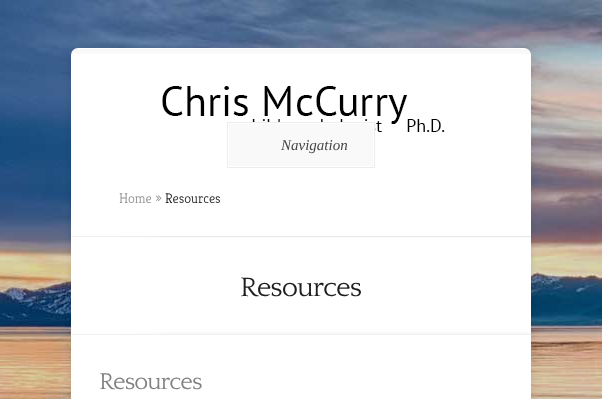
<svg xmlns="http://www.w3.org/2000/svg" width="602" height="399">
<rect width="100%" height="100%" fill="#fff"/>
<image x="0" y="0" width="602" height="399" href="media/1.png"/>
<rect x="71" y="48" width="460" height="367" rx="7" fill="#0000001a" filter="blur(3px)"/>
<rect x="71" y="48" width="460" height="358" rx="7" fill="#fff"/>
<image x="72" y="49" width="458" height="5" href="media/2.png"/>
<image x="162" y="86" width="283" height="50" href="media/3.png"/>
<rect x="228.5" y="123.5" width="145" height="43" fill="#f9f9f9" stroke="#fff"/>
<rect x="227.5" y="122.5" width="147" height="45" fill="none" stroke="#ececec"/>
<text x="281" y="150" style="font-family:Liberation Serif;font-size:15px;font-style:italic;fill:#464646">Navigation</text>
<text x="119" y="203" style="font-family:Kreon;font-size:14px;font-weight:300;fill:#929292">Home »</text>
<text x="165" y="203" style="font-family:Kreon;font-size:14px;font-weight:300;fill:#1d1d1d">Resources</text>
<image x="72" y="236" width="459" height="2" href="media/4.png"/>
<image x="72" y="332" width="459" height="3" href="media/5.png"/>
<text x="240" y="296" style="font-family:Quattrocento;font-size:28px;letter-spacing:-1px;fill:#1d1d1d">Resources</text>
<text x="99" y="389" style="font-family:Quattrocento;font-size:24px;letter-spacing:-1px;fill:#808080">Resources</text>
</svg>
